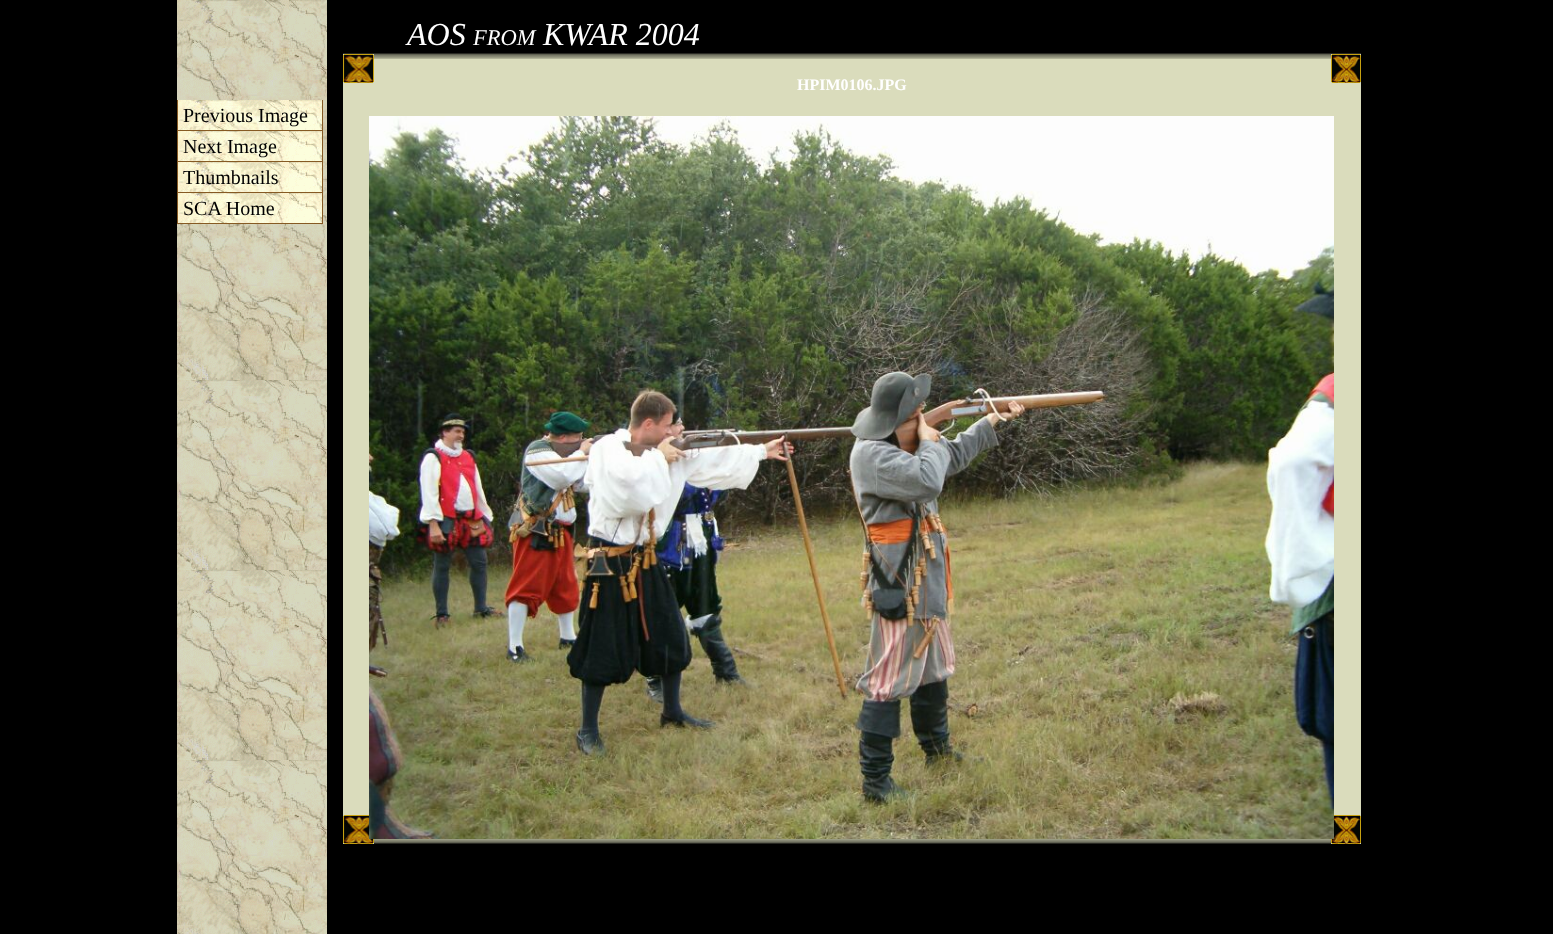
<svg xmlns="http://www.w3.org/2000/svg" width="1553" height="934">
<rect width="100%" height="100%" fill="#000"/>
<image x="177" y="0" width="150" height="934" href="media/1.png"/>
<text x="407" y="45" style="font-family:Liberation Serif;font-size:32px;font-style:italic;fill:#fff">AOS</text>
<text x="473" y="45" style="font-family:Liberation Serif;font-size:22.5px;font-style:italic;fill:#fff">FROM</text>
<text x="543" y="45" style="font-family:Liberation Serif;font-size:32px;font-style:italic;fill:#fff">KWAR 2004</text>
<rect x="343" y="59" width="1018" height="756" fill="#dadcbc"/>
<image x="343" y="53" width="1018" height="6" href="media/2.png"/>
<image x="374" y="839" width="957" height="5" href="media/3.png"/>
<image x="343" y="815" width="31" height="29" href="media/4.png"/>
<image x="1331" y="815" width="30" height="29" href="media/5.png"/>
<image x="343" y="54" width="31" height="29" href="media/4.png"/>
<image x="1331" y="54" width="30" height="29" href="media/5.png"/>
<text x="797" y="90" style="font-family:Liberation Serif;font-size:16px;font-weight:bold;fill:#fff">HPIM0106.JPG</text>
<image x="369" y="116" width="965" height="723" href="media/6.png"/>
<image x="178" y="100" width="144" height="30" href="media/7.png"/>
<rect x="322" y="100" width="1" height="124" fill="#865a23"/>
<rect x="177" y="130" width="146" height="1" fill="#865a23"/>
<rect x="177" y="100" width="1" height="31" fill="#865a23"/>
<text x="183" y="122" style="font-family:Liberation Serif;font-size:20px;fill:#000">Previous Image</text>
<image x="178" y="131" width="144" height="30" href="media/7.png"/>
<rect x="177" y="161" width="146" height="1" fill="#865a23"/>
<rect x="177" y="131" width="1" height="31" fill="#865a23"/>
<text x="183" y="153" style="font-family:Liberation Serif;font-size:20px;fill:#000">Next Image</text>
<image x="178" y="162" width="144" height="30" href="media/7.png"/>
<rect x="177" y="192" width="146" height="1" fill="#865a23"/>
<rect x="177" y="162" width="1" height="31" fill="#865a23"/>
<text x="183" y="184" style="font-family:Liberation Serif;font-size:20px;fill:#000">Thumbnails</text>
<image x="178" y="193" width="144" height="30" href="media/7.png"/>
<rect x="177" y="223" width="146" height="1" fill="#865a23"/>
<rect x="177" y="193" width="1" height="31" fill="#865a23"/>
<text x="183" y="215" style="font-family:Liberation Serif;font-size:20px;fill:#000">SCA Home</text>
</svg>
